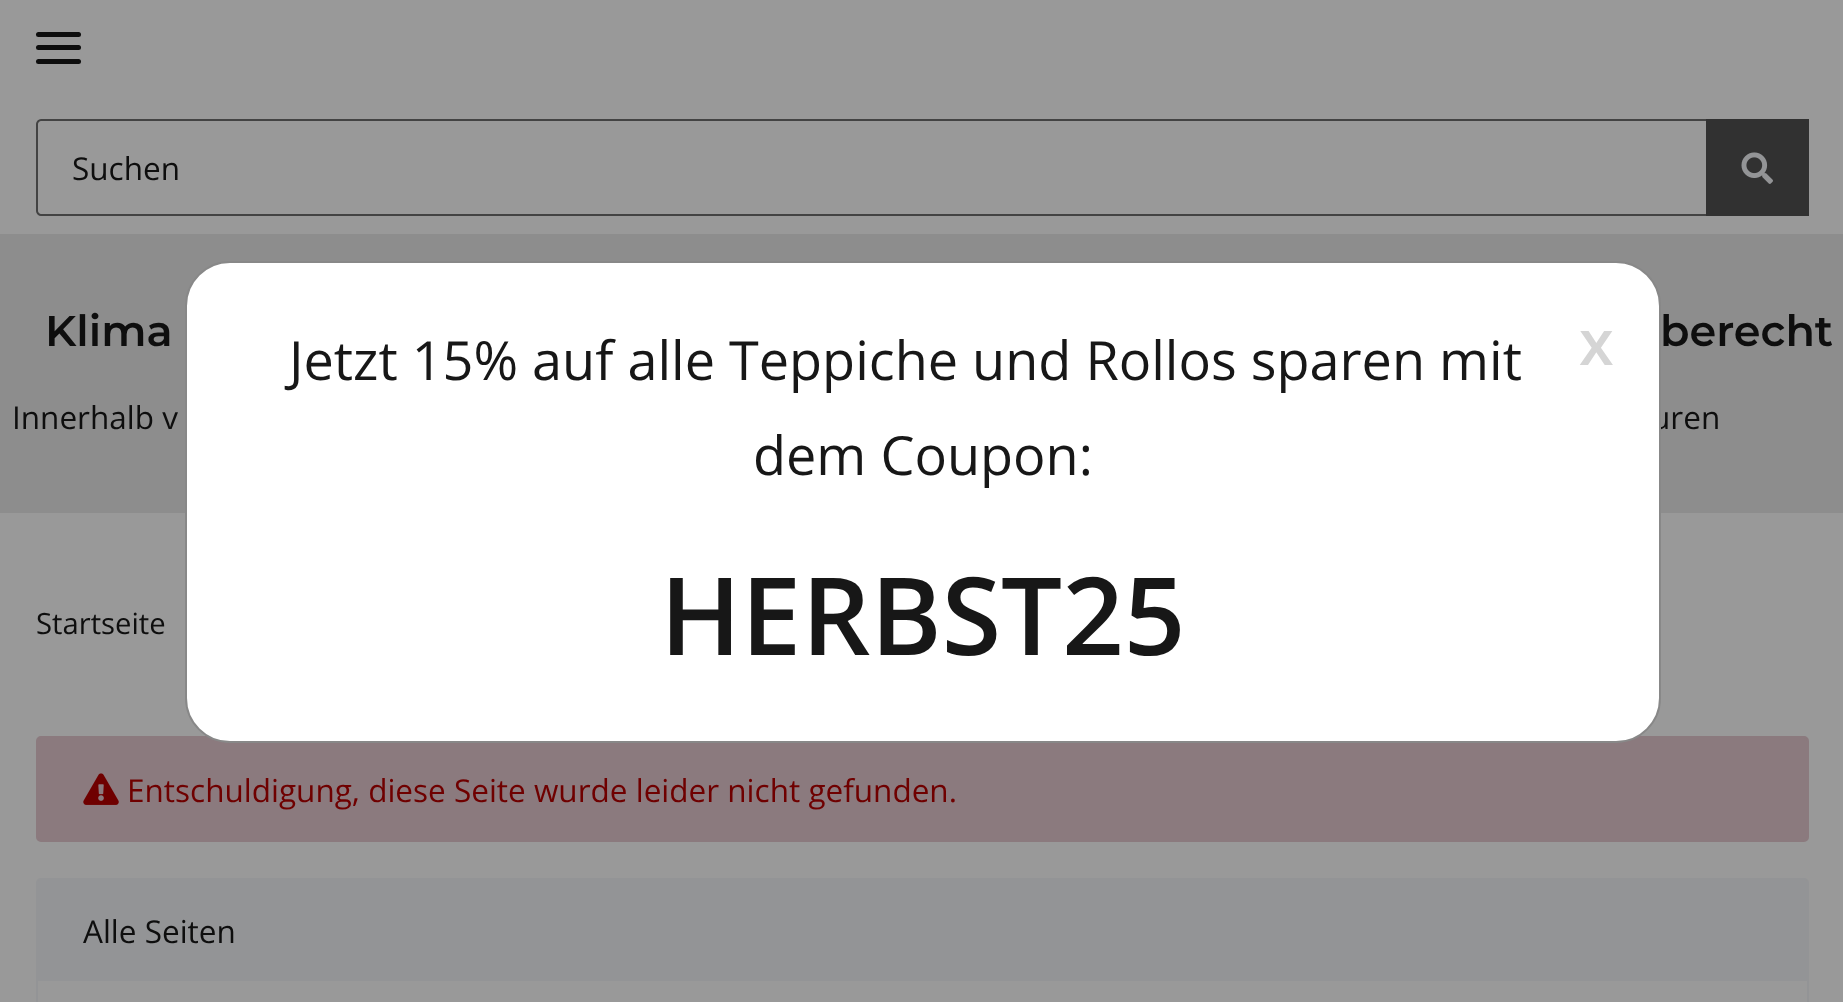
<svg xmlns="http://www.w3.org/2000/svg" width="1843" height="1002">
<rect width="100%" height="100%" fill="#999"/>
<rect x="36" y="45" width="45" height="5" rx="2.5" fill="#0e0e0e"/>
<rect x="36" y="32" width="45" height="5" rx="2.5" fill="#0e0e0e"/>
<rect x="36" y="59" width="45" height="5" rx="2.5" fill="#0e0e0e"/>
<path d="M41 120h1666v95h-1666c-2 0-4-2-4-4v-87c0-2 2-4 4-4z" fill="none" stroke="#434343" stroke-width="2"/>
<text x="72" y="180" style="font-family:Open Sans;font-size:31.5px;fill:#0e0e0e">Suchen</text>
<rect x="1706" y="119" width="103" height="97" fill="#313131"/>
<image x="1741" y="152" width="32" height="32" href="media/1.png"/>
<rect y="234" width="1843" height="279" fill="#8d8d8d"/>
<text x="45" y="346" style="font-family:Montserrat;font-size:43px;font-weight:600;fill:#0e0e0e">Klima</text>
<text x="12" y="429" style="font-family:Open Sans;font-size:31.5px;fill:#0e0e0e">Innerhalb v</text>
<text x="1660" y="346" style="font-family:Montserrat;font-size:43px;font-weight:600;fill:#0e0e0e">berecht</text>
<text x="1651" y="429" style="font-family:Open Sans;font-size:31.5px;fill:#0e0e0e">uren</text>
<rect x="37" y="737" width="1771" height="104" rx="4" fill="#8b7a7e" stroke="#8b7a7e" stroke-width="2"/>
<rect x="186" y="262" width="1474" height="480" rx="44" fill="#fff" stroke="#888" stroke-width="2"/>
<text x="289" y="380" style="font-family:Open Sans;font-size:54px;fill:#171717">Jetzt 15% auf alle Teppiche und Rollos sparen mit</text>
<text x="753" y="475" style="font-family:Open Sans;font-size:54px;fill:#171717">dem Coupon:</text>
<text x="660" y="655" style="font-family:Open Sans;font-size:108px;font-weight:600;fill:#171717">HERBST25</text>
<text x="1579" y="365" style="font-family:Open Sans;font-size:63px;font-weight:600;fill:#d5d5d5">x</text>
<text x="36" y="634" style="font-family:Open Sans;font-size:29.25px;fill:#0e0e0e">Startseite</text>
<image x="83" y="773" width="36" height="32" href="media/2.png"/>
<text x="127" y="802" style="font-family:Open Sans;font-size:31.5px;fill:#6f0000">Entschuldigung, diese Seite wurde leider nicht gefunden.</text>
<rect x="37" y="879" width="1771" height="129" rx="4" fill="none" stroke="#939496" stroke-width="2"/>
<path d="M40 880h1765c1 0 2 1 2 2v99h-1769v-99c0-1 1-2 2-2z" fill="#939496"/>
<text x="83" y="943" style="font-family:Open Sans;font-size:31.5px;fill:#0e0e0e">Alle Seiten</text>
</svg>
